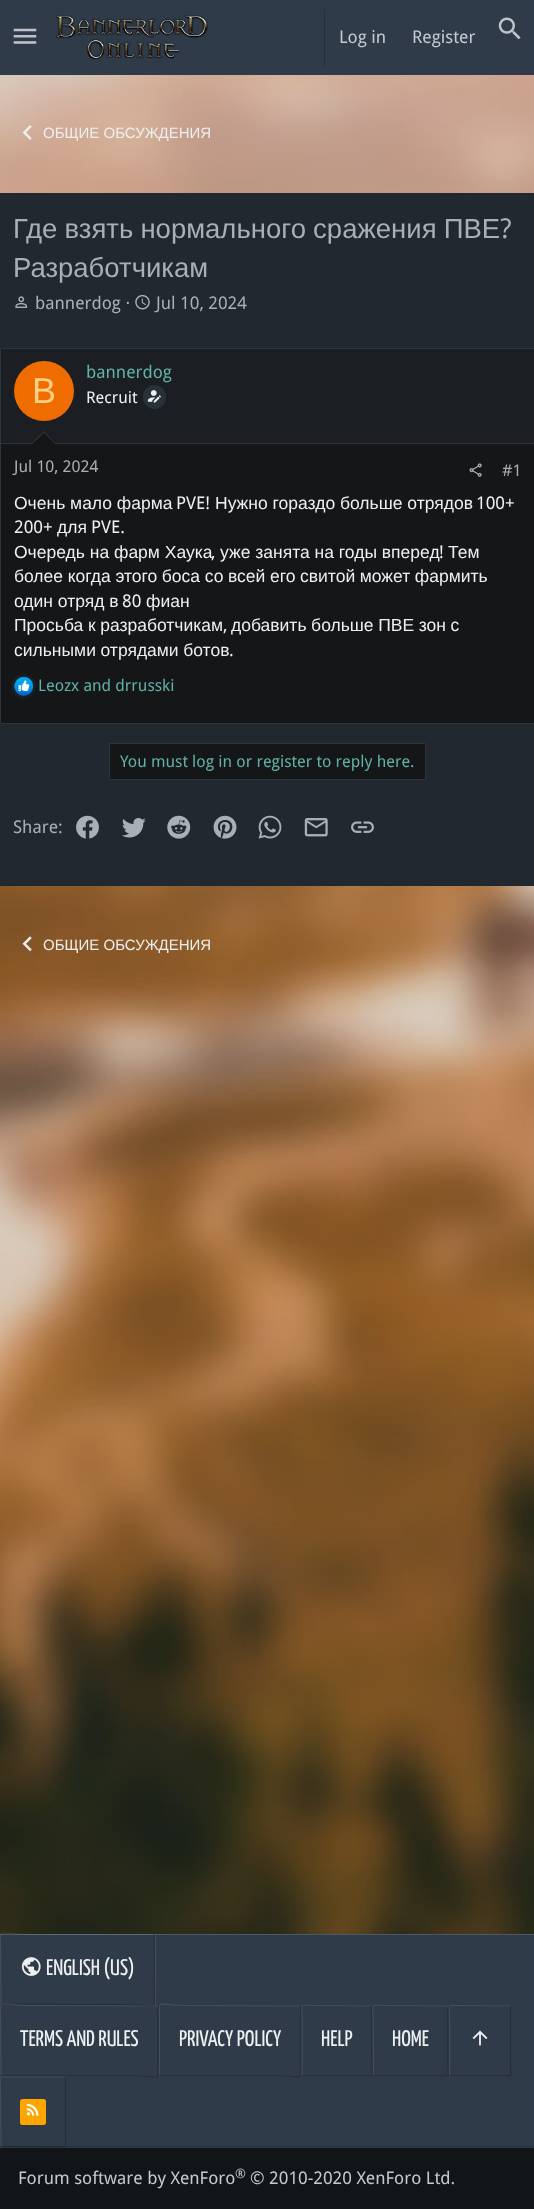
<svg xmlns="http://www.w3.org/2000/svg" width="534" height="2209">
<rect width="100%" height="100%" fill="#fff"/>
<image x="0" y="75" width="534" height="1859" href="media/1.png"/>
<rect width="534" height="75" fill="#2f3b49"/>
<image x="13" y="28" width="24" height="16" href="media/2.png"/>
<image x="55" y="15" width="153" height="45" href="media/3.png"/>
<rect x="324" y="9" width="1" height="59" fill="#262f3a"/>
<text x="339" y="43" style="font-family:Droid Sans;font-size:17.5px;fill:#c4c9cd">Log in</text>
<text x="412" y="43" style="font-family:Droid Sans;font-size:17.5px;fill:#c4c9cd">Register</text>
<image x="498" y="17" width="23" height="23" href="media/4.png"/>
<image x="22" y="125" width="10" height="15" href="media/5.png"/>
<text x="43" y="138" style="font-family:Liberation Sans;font-size:15px;fill:#edeff0">ОБЩИЕ ОБСУЖДЕНИЯ</text>
<rect y="193" width="534" height="693" fill="#22282f"/>
<text x="13" y="238" word-spacing="-0.5" style="font-family:Liberation Sans;font-size:27.5px;fill:#a8afb6">Где взять нормального сражения ПВЕ</text>
<text x="500" y="238" style="font-family:Droid Sans;font-size:27.5px;fill:#a8afb6">?</text>
<text x="13" y="277" style="font-family:Liberation Sans;font-size:27.5px;fill:#a8afb6">Разработчикам</text>
<image x="15" y="296" width="13" height="12" href="media/6.png"/>
<text x="35" y="309" style="font-family:Droid Sans;font-size:17.5px;fill:#a8afb6">bannerdog ·</text>
<image x="135" y="294" width="15" height="16" href="media/7.png"/>
<text x="156" y="309" style="font-family:Droid Sans;font-size:17.5px;fill:#a8afb6">Jul 10, 2024</text>
<rect x="0.5" y="348.5" width="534" height="375" rx="0.5" fill="#141618" stroke="#303539"/>
<rect x="1" y="349" width="533" height="94" fill="#1b1e23"/>
<rect x="1" y="443" width="533" height="1" fill="#303539"/>
<circle cx="44" cy="391" r="30" fill="#ef6c00"/>
<text x="32" y="403" style="font-family:Liberation Sans;font-size:36px;fill:#ffd180">B</text>
<text x="86" y="378" style="font-family:Droid Sans;font-size:17.5px;fill:#60b0a5">bannerdog</text>
<text x="86" y="403" style="font-family:Droid Sans;font-size:16.25px;fill:#edeff0">Recruit</text>
<rect x="143" y="385" width="23" height="24" rx="11.5" fill="#283038"/>
<image x="147" y="390" width="14" height="13" href="media/8.png"/>
<path d="M56 444h-25l13-13z" fill="#303539"/>
<path d="M55 444h-22.5l11.5-11.5z" fill="#141618"/>
<text x="14" y="472" style="font-family:Droid Sans;font-size:16.25px;fill:#a8afb6">Jul 10, 2024</text>
<image x="469" y="463" width="13" height="14" href="media/9.png"/>
<text x="502" y="476" style="font-family:Droid Sans;font-size:16.25px;fill:#a8afb6">#1</text>
<text x="14" y="509" style="font-family:Liberation Sans;font-size:17.5px;fill:#edeff0">Очень мало фарма</text>
<text x="176" y="509" style="font-family:Droid Sans;font-size:17.5px;fill:#edeff0">PVE!</text>
<text x="215" y="509" style="font-family:Liberation Sans;font-size:17.5px;fill:#edeff0">Нужно гораздо больше отрядов</text>
<text x="476" y="509" style="font-family:Droid Sans;font-size:17.5px;fill:#edeff0">100+</text>
<text x="14" y="533" style="font-family:Droid Sans;font-size:17.5px;fill:#edeff0">200+</text>
<text x="57" y="533" style="font-family:Liberation Sans;font-size:17.5px;fill:#edeff0">для</text>
<text x="91" y="533" style="font-family:Droid Sans;font-size:17.5px;fill:#edeff0">PVE.</text>
<text x="14" y="558" style="font-family:Liberation Sans;font-size:17.5px;fill:#edeff0">Очередь на фарм Хаука</text>
<text x="211" y="558" style="font-family:Droid Sans;font-size:17.5px;fill:#edeff0">,</text>
<text x="220" y="558" style="font-family:Liberation Sans;font-size:17.5px;fill:#edeff0">уже занята на годы вперед</text>
<text x="439" y="558" style="font-family:Droid Sans;font-size:17.5px;fill:#edeff0">!</text>
<text x="448" y="558" style="font-family:Liberation Sans;font-size:17.5px;fill:#edeff0">Тем</text>
<text x="14" y="582" word-spacing="-0.25" style="font-family:Liberation Sans;font-size:17.5px;fill:#edeff0">более когда этого боса со всей его свитой может фармить</text>
<text x="14" y="607" style="font-family:Liberation Sans;font-size:17.5px;fill:#edeff0">один отряд в</text>
<text x="122" y="607" style="font-family:Droid Sans;font-size:17.5px;fill:#edeff0">80</text>
<text x="146" y="607" style="font-family:Liberation Sans;font-size:17.5px;fill:#edeff0">фиан</text>
<text x="14" y="631" word-spacing="-0.25" style="font-family:Liberation Sans;font-size:17.5px;fill:#edeff0">Просьба к разработчикам</text>
<text x="223" y="631" style="font-family:Droid Sans;font-size:17.5px;fill:#edeff0">,</text>
<text x="231" y="631" word-spacing="-0.25" style="font-family:Liberation Sans;font-size:17.5px;fill:#edeff0">добавить больше ПВЕ зон с</text>
<text x="14" y="656" word-spacing="-0.25" style="font-family:Liberation Sans;font-size:17.5px;fill:#edeff0">сильными отрядами ботов</text>
<text x="229" y="656" style="font-family:Droid Sans;font-size:17.5px;fill:#edeff0">.</text>
<circle cx="23.5" cy="686.5" r="12.5" fill="#1b1e23"/>
<image x="14" y="677" width="19" height="19" href="media/10.png"/>
<text x="38" y="691" style="font-family:Droid Sans;font-size:16.25px;fill:#60b0a5">Leozx and drrusski</text>
<rect x="109.5" y="743.5" width="316" height="36" rx="0.5" fill="#141618" stroke="#303539"/>
<text x="120" y="767" style="font-family:Droid Sans;font-size:16.25px;fill:#60b0a5">You must log in or register to reply here.</text>
<text x="13" y="833" style="font-family:Droid Sans;font-size:17.5px;fill:#a8afb6">Share:</text>
<image x="76" y="815" width="23" height="24" href="media/11.png"/>
<image x="122" y="818" width="24" height="20" href="media/12.png"/>
<image x="167" y="815" width="24" height="24" href="media/13.png"/>
<image x="213" y="815" width="24" height="24" href="media/14.png"/>
<image x="258" y="815" width="24" height="24" href="media/15.png"/>
<image x="304" y="818" width="24" height="19" href="media/16.png"/>
<image x="351" y="821" width="23" height="12" href="media/17.png"/>
<image x="22" y="936" width="10" height="16" href="media/18.png"/>
<text x="43" y="950" style="font-family:Liberation Sans;font-size:15px;fill:#edeff0">ОБЩИЕ ОБСУЖДЕНИЯ</text>
<rect y="2148" width="534" height="61" fill="#111518"/>
<rect y="1935" width="534" height="213" fill="#2f3b49"/>
<rect y="2146" width="534" height="1" fill="#262f3a"/>
<rect y="1934" width="534" height="1" fill="#4e5864"/>
<rect x="155" y="1934" width="1" height="71" fill="#ffffff1a"/>
<path d="M154 1934.5l.5 58c0 20 2.5 12-26 12l-127.5-.5" fill="none" stroke="#262f3a" stroke-width="1.2"/>
<path d="M1 2004l-.5-57.5c0-20.5-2.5-12 26-12h127.5" fill="none" stroke="#ffffff1a" stroke-width="1.2"/>
<image x="21" y="1957" width="20" height="19" href="media/19.png"/>
<text x="46" y="1975" style="font-family:Yanone Kaffeesatz;font-size:22.5px;font-weight:200;fill:#edeff0">ENGLISH (US)</text>
<path d="M0 2005l-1 1v69c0 1 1 1 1 1v-1v-69c0 0 1-1 1-1z" fill="#262f3a"/>
<path d="M158 2006v57.5c0 20.5 3 12-26.5 12h-130.5" fill="none" stroke="#262f3a" stroke-width="1.2"/>
<path d="M1 2075.5l-.5-58c0-20.5-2.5-12 27-12l130.5 .5" fill="none" stroke="#ffffff1a" stroke-width="1.2"/>
<text x="20" y="2046" style="font-family:Yanone Kaffeesatz;font-size:22.5px;font-weight:200;fill:#edeff0">TERMS AND RULES</text>
<path d="M300.5 2006v57.5c0 19.5 3 12-24 12h-117" fill="none" stroke="#262f3a" stroke-width="1.2"/>
<path d="M159.5 2075.5v-58c0-19.5-3-12 24-12l117 .5" fill="none" stroke="#ffffff1a" stroke-width="1.2"/>
<text x="179" y="2046" style="font-family:Yanone Kaffeesatz;font-size:22.5px;font-weight:200;fill:#edeff0">PRIVACY POLICY</text>
<path d="M371.5 2006l.5 57.5c0 15.5 3.5 12-12 12h-58" fill="none" stroke="#262f3a" stroke-width="1.2"/>
<path d="M302 2075.5v-58c0-15.5-3.5-12 12-12l57.5 .5" fill="none" stroke="#ffffff1a" stroke-width="1.2"/>
<text x="321" y="2046" style="font-family:Yanone Kaffeesatz;font-size:22.5px;font-weight:200;fill:#edeff0">HELP</text>
<path d="M448 2006v57.5c0 16 3.5 12-13 12h-61.5" fill="none" stroke="#262f3a" stroke-width="1.2"/>
<path d="M373.5 2075.5l-.5-58c0-15.5-3.5-12 13-12l62 .5" fill="none" stroke="#ffffff1a" stroke-width="1.2"/>
<text x="392" y="2046" style="font-family:Yanone Kaffeesatz;font-size:22.5px;font-weight:200;fill:#edeff0">HOME</text>
<path d="M510.5 2006v57.5c0 15 3.5 12-10.5 12h-50.5" fill="none" stroke="#262f3a" stroke-width="1.2"/>
<path d="M449.5 2075.5v-58c0-14.5-3.5-12 10.5-12l50.5 .5" fill="none" stroke="#ffffff1a" stroke-width="1.2"/>
<image x="472" y="2030" width="16" height="16" href="media/20.png"/>
<path d="M65.5 2077v58c0 15 3.5 12-11 12l-53.5-.5" fill="none" stroke="#00000033" stroke-width="1.2"/>
<path d="M1 2146.5l-.5-57.5c0-15-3.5-12 11.5-12h53.5" fill="none" stroke="#434e5b" stroke-width="1.2"/>
<rect x="20" y="2099" width="26" height="26" rx="2.5" fill="#ffa500"/>
<image x="26" y="2103" width="13" height="13" href="media/21.png"/>
<text x="18" y="2184" style="font-family:Droid Sans;font-size:17.5px;fill:#c4c9cd">Forum software by XenForo</text>
<text x="235" y="2178" style="font-family:Droid Sans;font-size:13px;fill:#c4c9cd">®</text>
<text x="250" y="2184" style="font-family:Droid Sans;font-size:17.5px;fill:#c4c9cd">© 2010-2020 XenForo Ltd.</text>
</svg>
